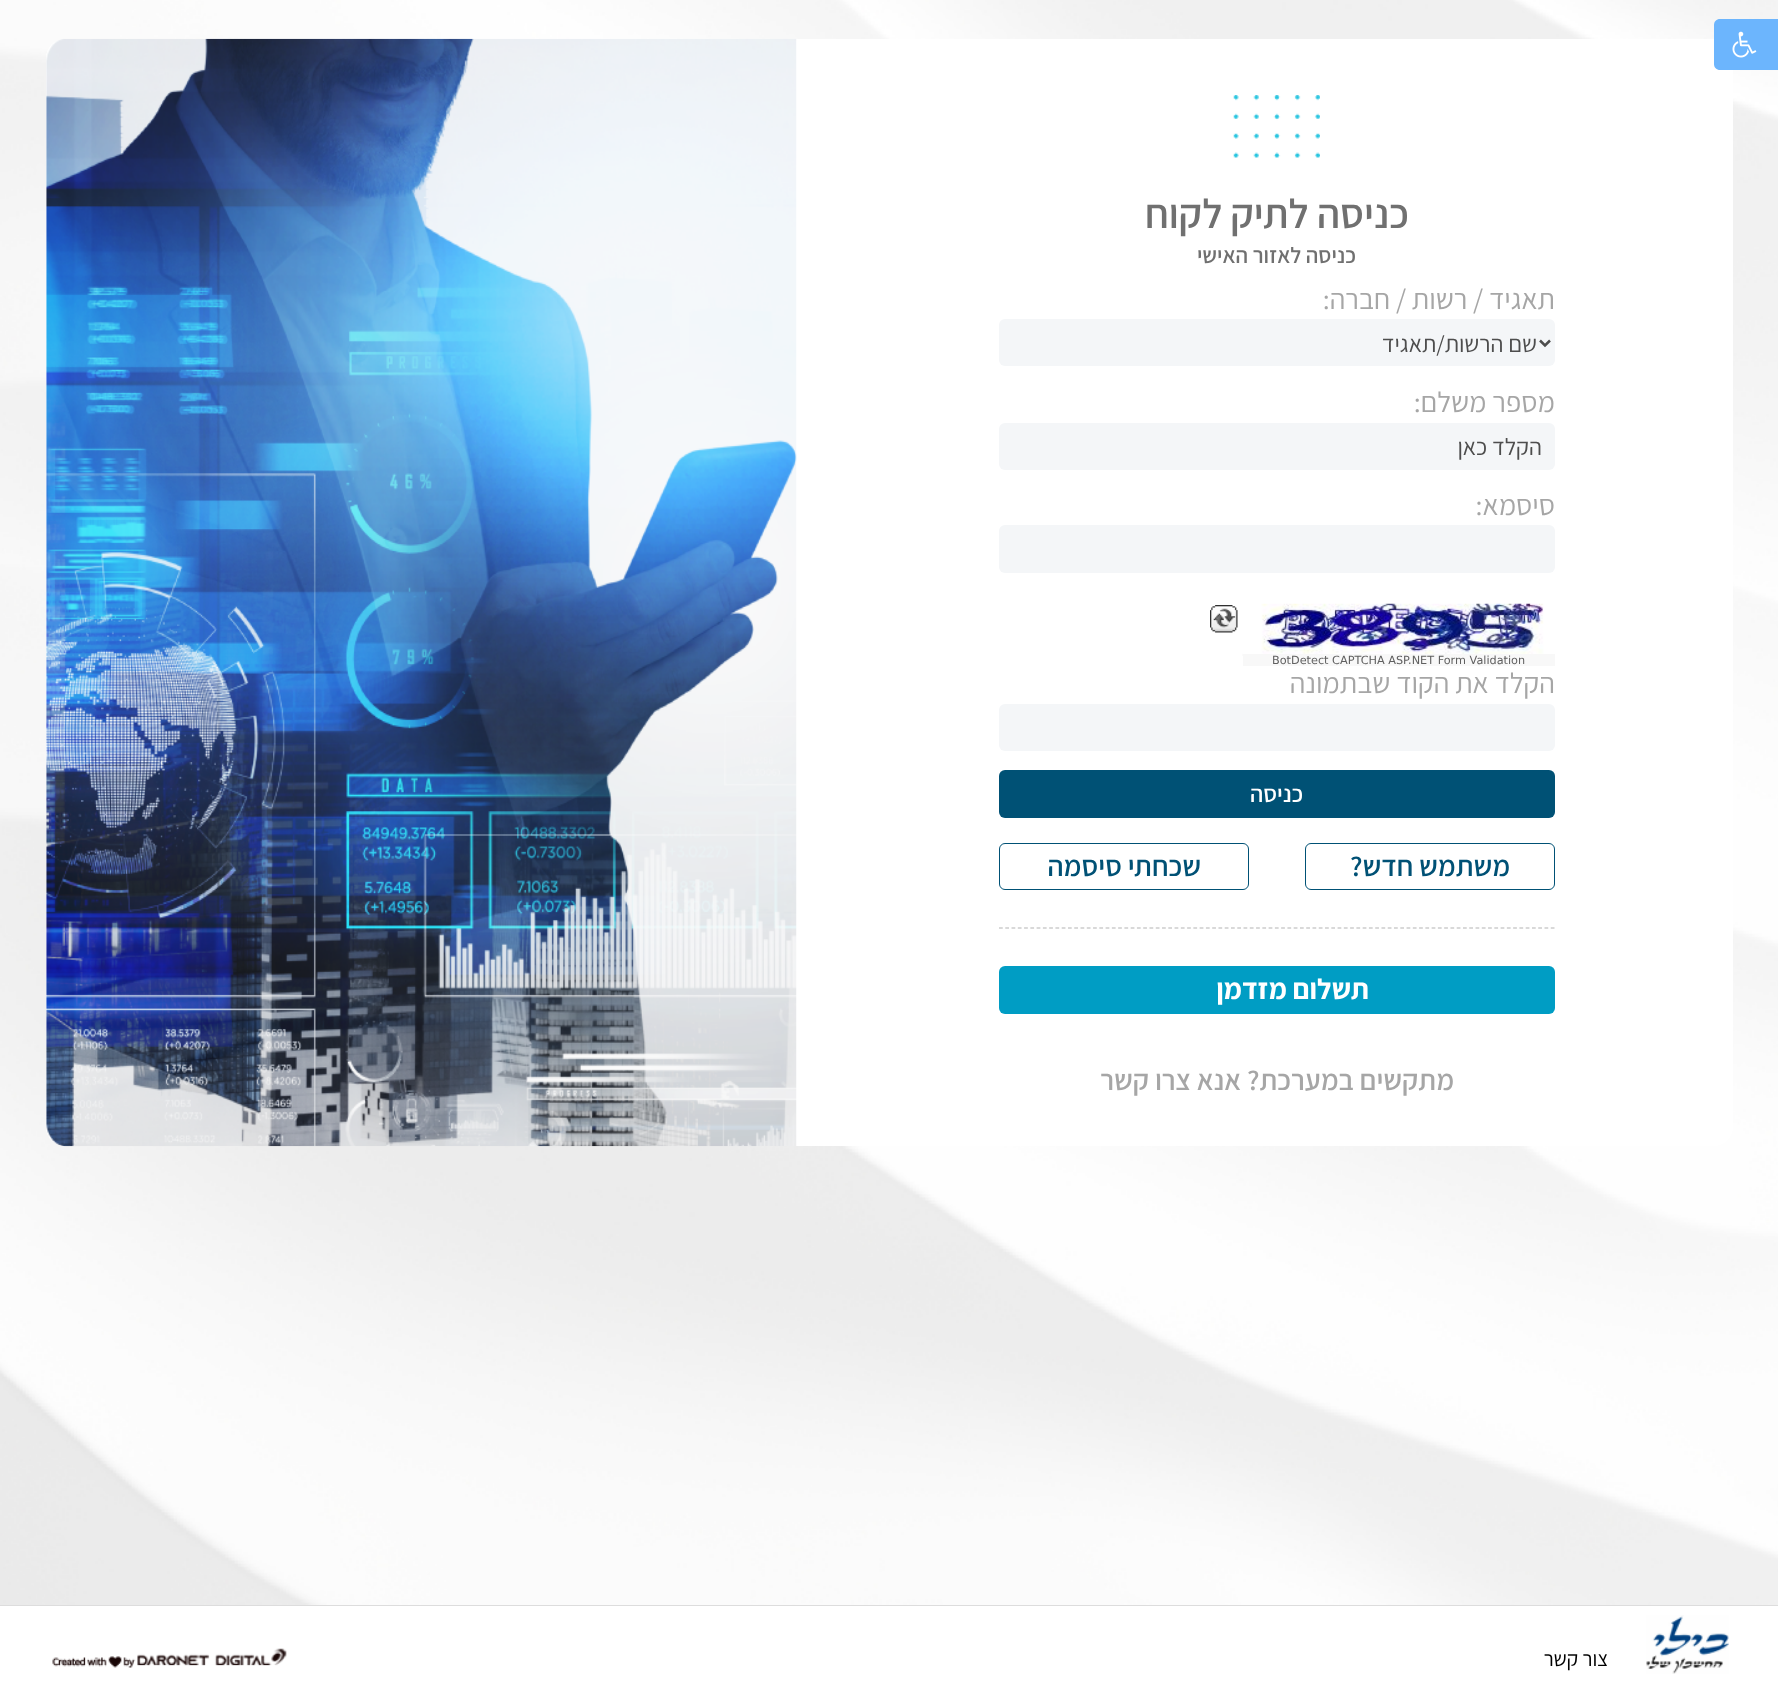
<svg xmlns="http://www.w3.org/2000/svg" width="1778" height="1683">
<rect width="100%" height="100%" fill="#fff"/>
<image x="0" y="0" width="1778" height="1605" href="media/1.png"/>
<rect x="46" y="39" width="1687" height="1107" rx="19" fill="#fff"/>
<path d="M1720 19h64v51h-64c-3.5 0-6-2.5-6-6v-39c0-3.5 2.5-6 6-6z" fill="#6cb5fd"/>
<image x="1732" y="31" width="25" height="27" href="media/2.png"/>
<image x="46" y="38" width="751" height="1109" href="media/3.png"/>
<image x="1233" y="95" width="87" height="63" href="media/4.png"/>
<text x="1409" y="228" style="font-family:Assistant;font-size:41.25px;font-weight:600;direction:rtl;fill:#707070">כניסה לתיק לקוח</text>
<text x="1356" y="263" style="font-family:Assistant;font-size:22.5px;font-weight:600;direction:rtl;fill:#707070">כניסה לאזור האישי</text>
<text x="1555" y="309" style="font-family:Assistant;font-size:28.75px;direction:rtl;fill:#a6a6a6">תאגיד / רשות / חברה:</text>
<rect x="999" y="319" width="556" height="47" rx="6" fill="#f4f6f8"/>
<path d="M1540 340.5l5 5l5-5" fill="none" stroke="#4d4d4d" stroke-width="2.5"/>
<text x="1537" y="352" style="font-family:Assistant;font-size:23.75px;direction:rtl;fill:#4d4d4d">שם הרשות/תאגיד</text>
<text x="1555" y="412" style="font-family:Assistant;font-size:28.75px;direction:rtl;fill:#a6a6a6">מספר משלם:</text>
<rect x="999" y="423" width="556" height="47" rx="6" fill="#f4f6f8"/>
<text x="1542" y="455" style="font-family:Assistant;font-size:23.75px;direction:rtl;fill:#4d4d4d">הקלד כאן</text>
<text x="1555" y="515" style="font-family:Assistant;font-size:28.75px;direction:rtl;fill:#a6a6a6">סיסמא:</text>
<rect x="999" y="525" width="556" height="48" rx="6" fill="#f4f6f8"/>
<image x="1210" y="605" width="28" height="28" href="media/5.png"/>
<rect x="1243" y="654" width="312" height="12" fill="#f8f8f8"/>
<image x="1242" y="603" width="302" height="53" href="media/6.png"/>
<text x="1272" y="664" style="font-family:DejaVu Sans;font-size:11.25px;fill:#606060">BotDetect CAPTCHA ASP.NET Form Validation</text>
<text x="1555" y="693" style="font-family:Assistant;font-size:28.75px;direction:rtl;fill:#a6a6a6">הקלד את הקוד שבתמונה</text>
<rect x="999" y="704" width="556" height="47" rx="6" fill="#f4f6f8"/>
<rect x="999" y="770" width="556" height="48" rx="6" fill="#005175"/>
<text x="1303" y="802" style="font-family:Assistant;font-size:23.75px;font-weight:600;direction:rtl;fill:#fff">כניסה</text>
<path d="M999 928h556" fill="none" stroke="#b3b3b3" stroke-width="1.2" stroke-dasharray="3.75 2.52"/>
<rect x="1305.5" y="843.5" width="249" height="46" rx="5.5" fill="none" stroke="#005175"/>
<text x="1510" y="876" style="font-family:Assistant;font-size:28.75px;font-weight:600;direction:rtl;fill:#005175">משתמש חדש?</text>
<rect x="999.5" y="843.5" width="249" height="46" rx="5.5" fill="none" stroke="#005175"/>
<text x="1201" y="876" style="font-family:Assistant;font-size:28.75px;font-weight:600;direction:rtl;fill:#005175">שכחתי סיסמה</text>
<rect x="999" y="966" width="556" height="48" rx="6" fill="#009dc4"/>
<text x="1369" y="999" style="font-family:Assistant;font-size:28.75px;font-weight:bold;direction:rtl;fill:#fff">תשלום מזדמן</text>
<text x="1454" y="1090" style="font-family:Assistant;font-size:28.75px;font-weight:600;direction:rtl;fill:#a6a6a6">מתקשים במערכת? אנא צרו קשר</text>
<rect y="1605" width="1778" height="1" fill="#ddd"/>
<image x="1646" y="1615" width="83" height="59" href="media/7.png"/>
<text x="1608" y="1666" style="font-family:Assistant;font-size:21px;direction:rtl;fill:#000">צור קשר</text>
<image x="52" y="1648" width="235" height="20" href="media/8.png"/>
</svg>
